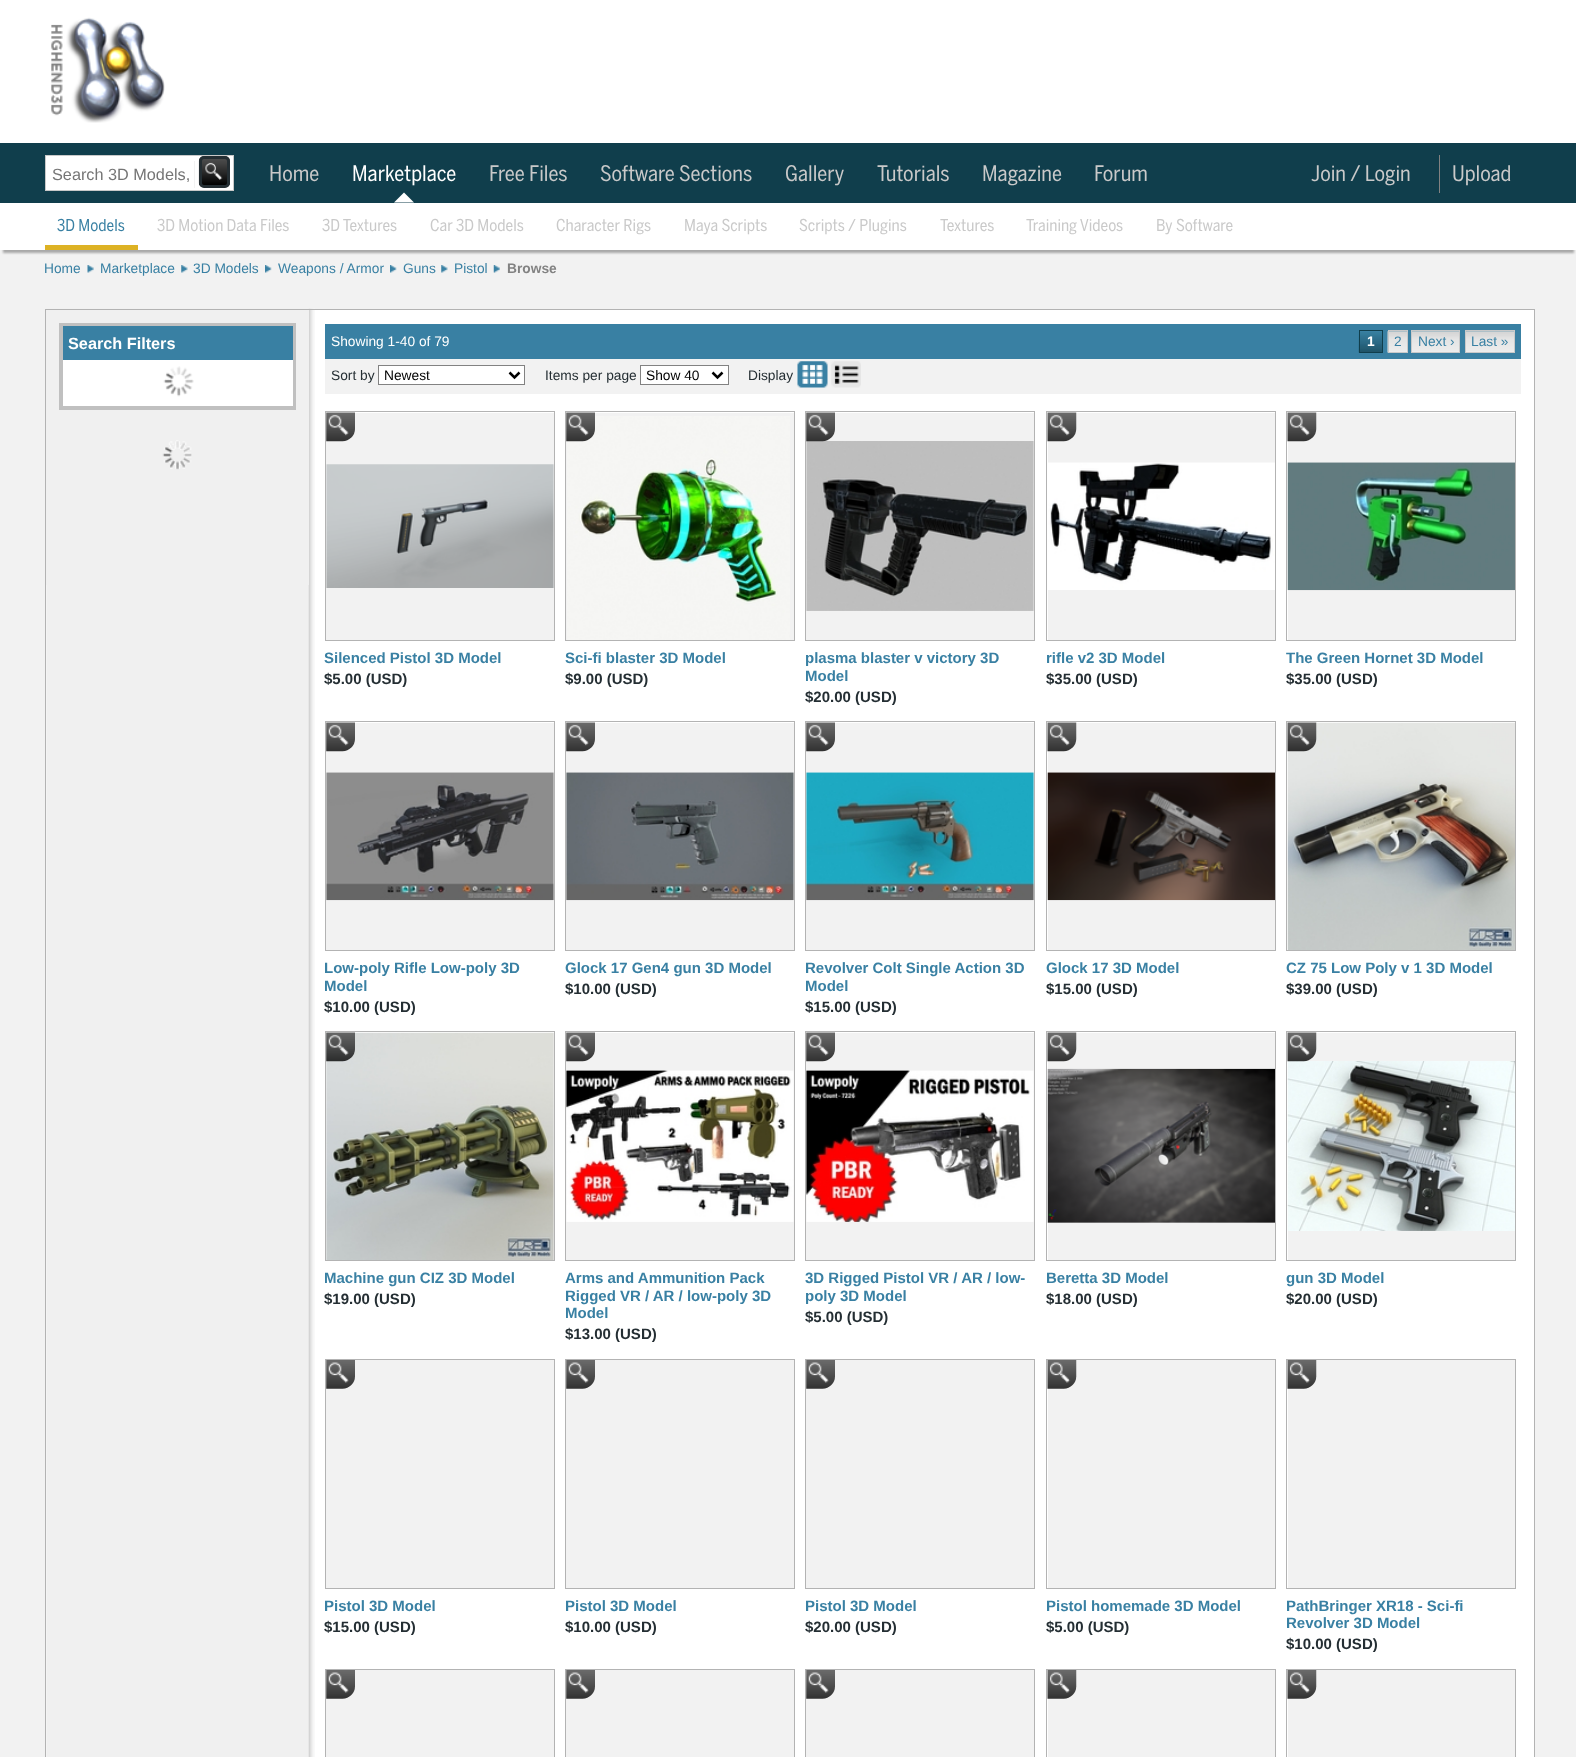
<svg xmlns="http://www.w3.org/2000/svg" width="1576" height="1757">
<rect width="100%" height="100%" fill="#f2f2f2"/>
<rect width="1576" height="143" fill="#fff"/>
<image x="51" y="17" width="114" height="106" href="media/1.png"/>
<rect y="143" width="1576" height="60" fill="#103e4c"/>
<text x="269" y="181" style="font-family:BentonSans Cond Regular;font-size:21.25px;fill:#c9c9c9">Home</text>
<text x="352" y="181" style="font-family:BentonSans Cond Regular;font-size:21.25px;fill:#fff">Marketplace</text>
<path d="M414 202.5h-20l10-10z" fill="#fff"/>
<text x="489" y="181" style="font-family:BentonSans Cond Regular;font-size:21.25px;fill:#c9c9c9">Free Files</text>
<text x="600" y="181" style="font-family:BentonSans Cond Regular;font-size:21.25px;fill:#c9c9c9">Software Sections</text>
<text x="785" y="181" style="font-family:BentonSans Cond Regular;font-size:21.25px;fill:#c9c9c9">Gallery</text>
<text x="877" y="181" style="font-family:BentonSans Cond Regular;font-size:21.25px;fill:#c9c9c9">Tutorials</text>
<text x="982" y="181" style="font-family:BentonSans Cond Regular;font-size:21.25px;fill:#c9c9c9">Magazine</text>
<text x="1094" y="181" style="font-family:BentonSans Cond Regular;font-size:21.25px;fill:#c9c9c9">Forum</text>
<text x="1311" y="181" style="font-family:BentonSans Cond Regular;font-size:21.25px;fill:#c9c9c9">Join / Login</text>
<rect x="1439" y="155" width="1" height="38" fill="#828282"/>
<text x="1452" y="181" style="font-family:BentonSans Cond Regular;font-size:21.25px;fill:#c9c9c9">Upload</text>
<rect x="3" y="210" width="1571" height="43" fill="#0000004d" filter="blur(1px)"/>
<rect y="203" width="1576" height="47" fill="#fff"/>
<text x="57" y="231" style="font-family:BentonSans Cond Regular;font-size:16.25px;fill:#3980a3">3D Models</text>
<rect x="45" y="245" width="93" height="5" fill="#ddb224"/>
<text x="157" y="231" style="font-family:BentonSans Cond Regular;font-size:16.25px;fill:#c9c9c9">3D Motion Data Files</text>
<text x="322" y="231" style="font-family:BentonSans Cond Regular;font-size:16.25px;fill:#c9c9c9">3D Textures</text>
<text x="430" y="231" style="font-family:BentonSans Cond Regular;font-size:16.25px;fill:#c9c9c9">Car 3D Models</text>
<text x="556" y="231" style="font-family:BentonSans Cond Regular;font-size:16.25px;fill:#c9c9c9">Character Rigs</text>
<text x="684" y="231" style="font-family:BentonSans Cond Regular;font-size:16.25px;fill:#c9c9c9">Maya Scripts</text>
<text x="799" y="231" style="font-family:BentonSans Cond Regular;font-size:16.25px;fill:#c9c9c9">Scripts / Plugins</text>
<text x="940" y="231" style="font-family:BentonSans Cond Regular;font-size:16.25px;fill:#c9c9c9">Textures</text>
<text x="1026" y="231" style="font-family:BentonSans Cond Regular;font-size:16.25px;fill:#c9c9c9">Training Videos</text>
<text x="1156" y="231" style="font-family:BentonSans Cond Regular;font-size:16.25px;fill:#c9c9c9">By Software</text>
<rect x="45.5" y="155.5" width="188" height="35" fill="#fff" stroke="#c9c9c9"/>
<rect x="194" y="161" width="1" height="27" fill="#f2f2f2"/>
<text x="52" y="180" style="font-family:Liberation Sans;font-size:16.25px;fill:#757575">Search 3D Models,</text>
<image x="198" y="156" width="32" height="32" href="media/2.png"/>
<rect x="200.5" y="157.5" width="28" height="29" rx="3.5" fill="none" stroke="#242e33" stroke-width="3"/>
<image x="87" y="265" width="7" height="8" href="media/3.png"/>
<text x="44" y="273" style="font-family:Liberation Sans;font-size:13.75px;fill:#3980a3">Home</text>
<image x="181" y="265" width="7" height="8" href="media/4.png"/>
<text x="100" y="273" style="font-family:Liberation Sans;font-size:13.75px;fill:#3980a3">Marketplace</text>
<image x="265" y="265" width="7" height="8" href="media/5.png"/>
<text x="193" y="273" style="font-family:Liberation Sans;font-size:13.75px;fill:#3980a3">3D Models</text>
<image x="390" y="265" width="7" height="8" href="media/6.png"/>
<text x="278" y="273" style="font-family:Liberation Sans;font-size:13.75px;fill:#3980a3">Weapons / Armor</text>
<image x="441" y="265" width="7" height="8" href="media/4.png"/>
<text x="403" y="273" style="font-family:Liberation Sans;font-size:13.75px;fill:#3980a3">Guns</text>
<image x="493" y="265" width="7" height="8" href="media/7.png"/>
<text x="454" y="273" style="font-family:Liberation Sans;font-size:13.75px;fill:#3980a3">Pistol</text>
<text x="507" y="273" style="font-family:Liberation Sans;font-size:13.75px;font-weight:bold;fill:#828282">Browse</text>
<rect x="46" y="310" width="1488" height="1447" fill="#fff"/>
<image x="46" y="308" width="269" height="1449" href="media/8.png"/>
<rect x="45.5" y="309.5" width="1489" height="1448" fill="none" stroke="#b3b3b3"/>
<rect x="46" y="310" width="263" height="275" fill="#f0f0f0"/>
<rect x="61" y="325" width="233" height="83" fill="none" stroke="#c0c0c0" stroke-width="4"/>
<rect x="63" y="326" width="230" height="34" fill="#3980a3"/>
<text x="68" y="349" style="font-family:Liberation Sans;font-size:16.25px;font-weight:bold;fill:#fff">Search Filters</text>
<rect x="63" y="360" width="230" height="46" fill="#fff"/>
<image x="163" y="366" width="31" height="31" href="media/9.png"/>
<image x="162" y="440" width="30" height="30" href="media/10.png"/>
<rect x="325" y="324" width="1196" height="35" fill="#3980a3"/>
<text x="331" y="346" style="font-family:Liberation Sans;font-size:13.75px;fill:#fff">Showing 1-40 of 79</text>
<image x="1358" y="332" width="24" height="21" href="media/11.png"/>
<image x="1387" y="331" width="20" height="22" href="media/12.png"/>
<image x="1412" y="331" width="47" height="21" href="media/13.png"/>
<image x="1466" y="331" width="48" height="21" href="media/14.png"/>
<rect x="1359.5" y="330.5" width="23" height="22" fill="none" stroke="#103e4c"/>
<text x="1367" y="346" style="font-family:Liberation Sans;font-size:13.75px;font-weight:bold;fill:#fff">1</text>
<rect x="1388.5" y="330.5" width="19" height="22" fill="none" stroke="#c9c9c9"/>
<text x="1394" y="346" style="font-family:Liberation Sans;font-size:13.75px;fill:#3980a3">2</text>
<rect x="1411.5" y="330.5" width="48" height="22" fill="none" stroke="#c9c9c9"/>
<text x="1418" y="346" style="font-family:Liberation Sans;font-size:13.75px;fill:#3980a3">Next ›</text>
<rect x="1465.5" y="330.5" width="49" height="22" fill="none" stroke="#c9c9c9"/>
<text x="1471" y="346" style="font-family:Liberation Sans;font-size:13.75px;fill:#3980a3">Last »</text>
<rect x="325" y="359" width="1196" height="35" fill="#f2f2f2"/>
<text x="331" y="380" style="font-family:Liberation Sans;font-size:13.75px;fill:#242e33">Sort by</text>
<rect x="378.5" y="365.5" width="146" height="19" fill="#fff" stroke="#828282"/>
<path d="M509.5 372.5l5 5l5-5" fill="none" stroke="#000" stroke-width="2.5"/>
<text x="384" y="380" style="font-family:Liberation Sans;font-size:13.75px;fill:#000">Newest</text>
<text x="545" y="380" style="font-family:Liberation Sans;font-size:13.75px;fill:#242e33">Items per page</text>
<rect x="640.5" y="365.5" width="88" height="19" fill="#fff" stroke="#828282"/>
<path d="M712.5 372.5l5 5l5-5" fill="none" stroke="#000" stroke-width="2.5"/>
<text x="646" y="380" style="font-family:Liberation Sans;font-size:13.75px;fill:#000">Show 40</text>
<text x="748" y="380" style="font-family:Liberation Sans;font-size:13.75px;fill:#242e33">Display</text>
<image x="797" y="361" width="31" height="27" href="media/15.png"/>
<image x="831" y="361" width="30" height="27" href="media/16.png"/>
<rect x="325.5" y="411.5" width="229" height="229" fill="none" stroke="#b3b3b3"/>
<rect x="326" y="413" width="228" height="227" fill="#f2f2f2"/>
<image x="326" y="412" width="29" height="30" href="media/17.png"/>
<image x="326" y="464" width="228" height="124" href="media/18.png"/>
<text x="324" y="663" style="font-family:Liberation Sans;font-size:15px;font-weight:bold;fill:#3980a3">Silenced Pistol 3D Model</text>
<text x="324" y="684" style="font-family:Liberation Sans;font-size:15px;font-weight:bold;fill:#242e33">$5.00 (USD)</text>
<rect x="565.5" y="411.5" width="229" height="229" fill="none" stroke="#b3b3b3"/>
<rect x="566" y="413" width="228" height="227" fill="#f2f2f2"/>
<image x="567" y="416" width="223" height="224" href="media/20.png"/>
<image x="566" y="412" width="29" height="30" href="media/19.png"/>
<text x="565" y="663" style="font-family:Liberation Sans;font-size:15px;font-weight:bold;fill:#3980a3">Sci-fi blaster 3D Model</text>
<text x="565" y="684" style="font-family:Liberation Sans;font-size:15px;font-weight:bold;fill:#242e33">$9.00 (USD)</text>
<rect x="805.5" y="411.5" width="229" height="229" fill="none" stroke="#b3b3b3"/>
<rect x="806" y="413" width="228" height="227" fill="#f2f2f2"/>
<image x="806" y="441" width="228" height="170" href="media/22.png"/>
<image x="806" y="412" width="29" height="30" href="media/21.png"/>
<text x="805" y="663" style="font-family:Liberation Sans;font-size:15px;font-weight:bold;fill:#3980a3">plasma blaster v victory 3D</text>
<text x="805" y="681" style="font-family:Liberation Sans;font-size:15px;font-weight:bold;fill:#3980a3">Model</text>
<text x="805" y="702" style="font-family:Liberation Sans;font-size:15px;font-weight:bold;fill:#242e33">$20.00 (USD)</text>
<rect x="1046.5" y="411.5" width="229" height="229" fill="none" stroke="#b3b3b3"/>
<rect x="1048" y="413" width="227" height="227" fill="#f2f2f2"/>
<image x="1047" y="412" width="30" height="30" href="media/23.png"/>
<image x="1048" y="462" width="227" height="128" href="media/24.png"/>
<text x="1046" y="663" style="font-family:Liberation Sans;font-size:15px;font-weight:bold;fill:#3980a3">rifle v2 3D Model</text>
<text x="1046" y="684" style="font-family:Liberation Sans;font-size:15px;font-weight:bold;fill:#242e33">$35.00 (USD)</text>
<rect x="1286.5" y="411.5" width="229" height="229" fill="none" stroke="#b3b3b3"/>
<rect x="1288" y="413" width="227" height="227" fill="#f2f2f2"/>
<image x="1287" y="412" width="30" height="30" href="media/23.png"/>
<image x="1287" y="462" width="228" height="129" href="media/25.png"/>
<text x="1286" y="663" style="font-family:Liberation Sans;font-size:15px;font-weight:bold;fill:#3980a3">The Green Hornet 3D Model</text>
<text x="1286" y="684" style="font-family:Liberation Sans;font-size:15px;font-weight:bold;fill:#242e33">$35.00 (USD)</text>
<rect x="325.5" y="721.5" width="229" height="229" fill="none" stroke="#b3b3b3"/>
<rect x="326" y="723" width="228" height="227" fill="#f2f2f2"/>
<image x="326" y="722" width="29" height="30" href="media/17.png"/>
<image x="326" y="772" width="228" height="129" href="media/26.png"/>
<text x="324" y="973" style="font-family:Liberation Sans;font-size:15px;font-weight:bold;fill:#3980a3">Low-poly Rifle Low-poly 3D</text>
<text x="324" y="991" style="font-family:Liberation Sans;font-size:15px;font-weight:bold;fill:#3980a3">Model</text>
<text x="324" y="1012" style="font-family:Liberation Sans;font-size:15px;font-weight:bold;fill:#242e33">$10.00 (USD)</text>
<rect x="565.5" y="721.5" width="229" height="229" fill="none" stroke="#b3b3b3"/>
<rect x="566" y="723" width="228" height="227" fill="#f2f2f2"/>
<image x="566" y="722" width="29" height="30" href="media/27.png"/>
<image x="566" y="772" width="228" height="129" href="media/28.png"/>
<text x="565" y="973" style="font-family:Liberation Sans;font-size:15px;font-weight:bold;fill:#3980a3">Glock 17 Gen4 gun 3D Model</text>
<text x="565" y="994" style="font-family:Liberation Sans;font-size:15px;font-weight:bold;fill:#242e33">$10.00 (USD)</text>
<rect x="805.5" y="721.5" width="229" height="229" fill="none" stroke="#b3b3b3"/>
<rect x="806" y="723" width="228" height="227" fill="#f2f2f2"/>
<image x="806" y="722" width="29" height="30" href="media/17.png"/>
<image x="806" y="772" width="228" height="129" href="media/29.png"/>
<text x="805" y="973" style="font-family:Liberation Sans;font-size:15px;font-weight:bold;fill:#3980a3">Revolver Colt Single Action 3D</text>
<text x="805" y="991" style="font-family:Liberation Sans;font-size:15px;font-weight:bold;fill:#3980a3">Model</text>
<text x="805" y="1012" style="font-family:Liberation Sans;font-size:15px;font-weight:bold;fill:#242e33">$15.00 (USD)</text>
<rect x="1046.5" y="721.5" width="229" height="229" fill="none" stroke="#b3b3b3"/>
<rect x="1048" y="723" width="227" height="227" fill="#f2f2f2"/>
<image x="1047" y="722" width="30" height="30" href="media/23.png"/>
<image x="1047" y="772" width="228" height="129" href="media/30.png"/>
<text x="1046" y="973" style="font-family:Liberation Sans;font-size:15px;font-weight:bold;fill:#3980a3">Glock 17 3D Model</text>
<text x="1046" y="994" style="font-family:Liberation Sans;font-size:15px;font-weight:bold;fill:#242e33">$15.00 (USD)</text>
<rect x="1286.5" y="721.5" width="229" height="229" fill="none" stroke="#b3b3b3"/>
<image x="1287" y="722" width="228" height="228" href="media/31.png"/>
<image x="1287" y="722" width="30" height="30" href="media/32.png"/>
<text x="1286" y="973" style="font-family:Liberation Sans;font-size:15px;font-weight:bold;fill:#3980a3">CZ 75 Low Poly v 1 3D Model</text>
<text x="1286" y="994" style="font-family:Liberation Sans;font-size:15px;font-weight:bold;fill:#242e33">$39.00 (USD)</text>
<rect x="325.5" y="1031.5" width="229" height="229" fill="none" stroke="#b3b3b3"/>
<rect x="326" y="1033" width="228" height="227" fill="#f2f2f2"/>
<image x="326" y="1032" width="228" height="228" href="media/33.png"/>
<image x="326" y="1032" width="29" height="30" href="media/34.png"/>
<text x="324" y="1283" style="font-family:Liberation Sans;font-size:15px;font-weight:bold;fill:#3980a3">Machine gun CIZ 3D Model</text>
<text x="324" y="1304" style="font-family:Liberation Sans;font-size:15px;font-weight:bold;fill:#242e33">$19.00 (USD)</text>
<rect x="565.5" y="1031.5" width="229" height="229" fill="none" stroke="#b3b3b3"/>
<rect x="566" y="1033" width="228" height="227" fill="#f2f2f2"/>
<image x="566" y="1032" width="29" height="30" href="media/27.png"/>
<image x="566" y="1070" width="228" height="152" href="media/35.png"/>
<text x="565" y="1283" style="font-family:Liberation Sans;font-size:15px;font-weight:bold;fill:#3980a3">Arms and Ammunition Pack</text>
<text x="565" y="1301" style="font-family:Liberation Sans;font-size:15px;font-weight:bold;fill:#3980a3">Rigged VR / AR / low-poly 3D</text>
<text x="565" y="1318" style="font-family:Liberation Sans;font-size:15px;font-weight:bold;fill:#3980a3">Model</text>
<text x="565" y="1339" style="font-family:Liberation Sans;font-size:15px;font-weight:bold;fill:#242e33">$13.00 (USD)</text>
<rect x="805.5" y="1031.5" width="229" height="229" fill="none" stroke="#b3b3b3"/>
<rect x="806" y="1033" width="228" height="227" fill="#f2f2f2"/>
<image x="806" y="1032" width="29" height="30" href="media/17.png"/>
<image x="806" y="1070" width="228" height="152" href="media/36.png"/>
<text x="805" y="1283" style="font-family:Liberation Sans;font-size:15px;font-weight:bold;fill:#3980a3">3D Rigged Pistol VR / AR / low-</text>
<text x="805" y="1301" style="font-family:Liberation Sans;font-size:15px;font-weight:bold;fill:#3980a3">poly 3D Model</text>
<text x="805" y="1322" style="font-family:Liberation Sans;font-size:15px;font-weight:bold;fill:#242e33">$5.00 (USD)</text>
<rect x="1046.5" y="1031.5" width="229" height="229" fill="none" stroke="#b3b3b3"/>
<rect x="1048" y="1033" width="227" height="227" fill="#f2f2f2"/>
<image x="1047" y="1032" width="30" height="30" href="media/23.png"/>
<image x="1047" y="1068" width="228" height="155" href="media/37.png"/>
<text x="1046" y="1283" style="font-family:Liberation Sans;font-size:15px;font-weight:bold;fill:#3980a3">Beretta 3D Model</text>
<text x="1046" y="1304" style="font-family:Liberation Sans;font-size:15px;font-weight:bold;fill:#242e33">$18.00 (USD)</text>
<rect x="1286.5" y="1031.5" width="229" height="229" fill="none" stroke="#b3b3b3"/>
<rect x="1288" y="1033" width="227" height="227" fill="#f2f2f2"/>
<image x="1287" y="1061" width="228" height="170" href="media/39.png"/>
<image x="1287" y="1032" width="30" height="30" href="media/38.png"/>
<text x="1286" y="1283" style="font-family:Liberation Sans;font-size:15px;font-weight:bold;fill:#3980a3">gun 3D Model</text>
<text x="1286" y="1304" style="font-family:Liberation Sans;font-size:15px;font-weight:bold;fill:#242e33">$20.00 (USD)</text>
<rect x="325.5" y="1359.5" width="229" height="229" fill="none" stroke="#b3b3b3"/>
<rect x="326" y="1360" width="228" height="228" fill="#f2f2f2"/>
<image x="326" y="1360" width="29" height="29" href="media/40.png"/>
<text x="324" y="1611" style="font-family:Liberation Sans;font-size:15px;font-weight:bold;fill:#3980a3">Pistol 3D Model</text>
<text x="324" y="1632" style="font-family:Liberation Sans;font-size:15px;font-weight:bold;fill:#242e33">$15.00 (USD)</text>
<rect x="565.5" y="1359.5" width="229" height="229" fill="none" stroke="#b3b3b3"/>
<rect x="566" y="1360" width="228" height="228" fill="#f2f2f2"/>
<image x="566" y="1360" width="29" height="29" href="media/41.png"/>
<text x="565" y="1611" style="font-family:Liberation Sans;font-size:15px;font-weight:bold;fill:#3980a3">Pistol 3D Model</text>
<text x="565" y="1632" style="font-family:Liberation Sans;font-size:15px;font-weight:bold;fill:#242e33">$10.00 (USD)</text>
<rect x="805.5" y="1359.5" width="229" height="229" fill="none" stroke="#b3b3b3"/>
<rect x="806" y="1360" width="228" height="228" fill="#f2f2f2"/>
<image x="806" y="1360" width="29" height="29" href="media/40.png"/>
<text x="805" y="1611" style="font-family:Liberation Sans;font-size:15px;font-weight:bold;fill:#3980a3">Pistol 3D Model</text>
<text x="805" y="1632" style="font-family:Liberation Sans;font-size:15px;font-weight:bold;fill:#242e33">$20.00 (USD)</text>
<rect x="1046.5" y="1359.5" width="229" height="229" fill="none" stroke="#b3b3b3"/>
<rect x="1048" y="1360" width="227" height="228" fill="#f2f2f2"/>
<image x="1047" y="1360" width="30" height="29" href="media/42.png"/>
<text x="1046" y="1611" style="font-family:Liberation Sans;font-size:15px;font-weight:bold;fill:#3980a3">Pistol homemade 3D Model</text>
<text x="1046" y="1632" style="font-family:Liberation Sans;font-size:15px;font-weight:bold;fill:#242e33">$5.00 (USD)</text>
<rect x="1286.5" y="1359.5" width="229" height="229" fill="none" stroke="#b3b3b3"/>
<rect x="1288" y="1360" width="227" height="228" fill="#f2f2f2"/>
<image x="1287" y="1360" width="30" height="29" href="media/42.png"/>
<text x="1286" y="1611" style="font-family:Liberation Sans;font-size:15px;font-weight:bold;fill:#3980a3">PathBringer XR18 - Sci-fi</text>
<text x="1286" y="1628" style="font-family:Liberation Sans;font-size:15px;font-weight:bold;fill:#3980a3">Revolver 3D Model</text>
<text x="1286" y="1649" style="font-family:Liberation Sans;font-size:15px;font-weight:bold;fill:#242e33">$10.00 (USD)</text>
<rect x="325.5" y="1669.5" width="229" height="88" fill="none" stroke="#b3b3b3"/>
<rect x="326" y="1670" width="228" height="87" fill="#f2f2f2"/>
<image x="326" y="1670" width="29" height="29" href="media/40.png"/>
<rect x="565.5" y="1669.5" width="229" height="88" fill="none" stroke="#b3b3b3"/>
<rect x="566" y="1670" width="228" height="87" fill="#f2f2f2"/>
<image x="566" y="1670" width="29" height="29" href="media/41.png"/>
<rect x="805.5" y="1669.5" width="229" height="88" fill="none" stroke="#b3b3b3"/>
<rect x="806" y="1670" width="228" height="87" fill="#f2f2f2"/>
<image x="806" y="1670" width="29" height="29" href="media/40.png"/>
<rect x="1046.5" y="1669.5" width="229" height="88" fill="none" stroke="#b3b3b3"/>
<rect x="1048" y="1670" width="227" height="87" fill="#f2f2f2"/>
<image x="1047" y="1670" width="30" height="29" href="media/42.png"/>
<rect x="1286.5" y="1669.5" width="229" height="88" fill="none" stroke="#b3b3b3"/>
<rect x="1288" y="1670" width="227" height="87" fill="#f2f2f2"/>
<image x="1287" y="1670" width="30" height="29" href="media/42.png"/>
</svg>
